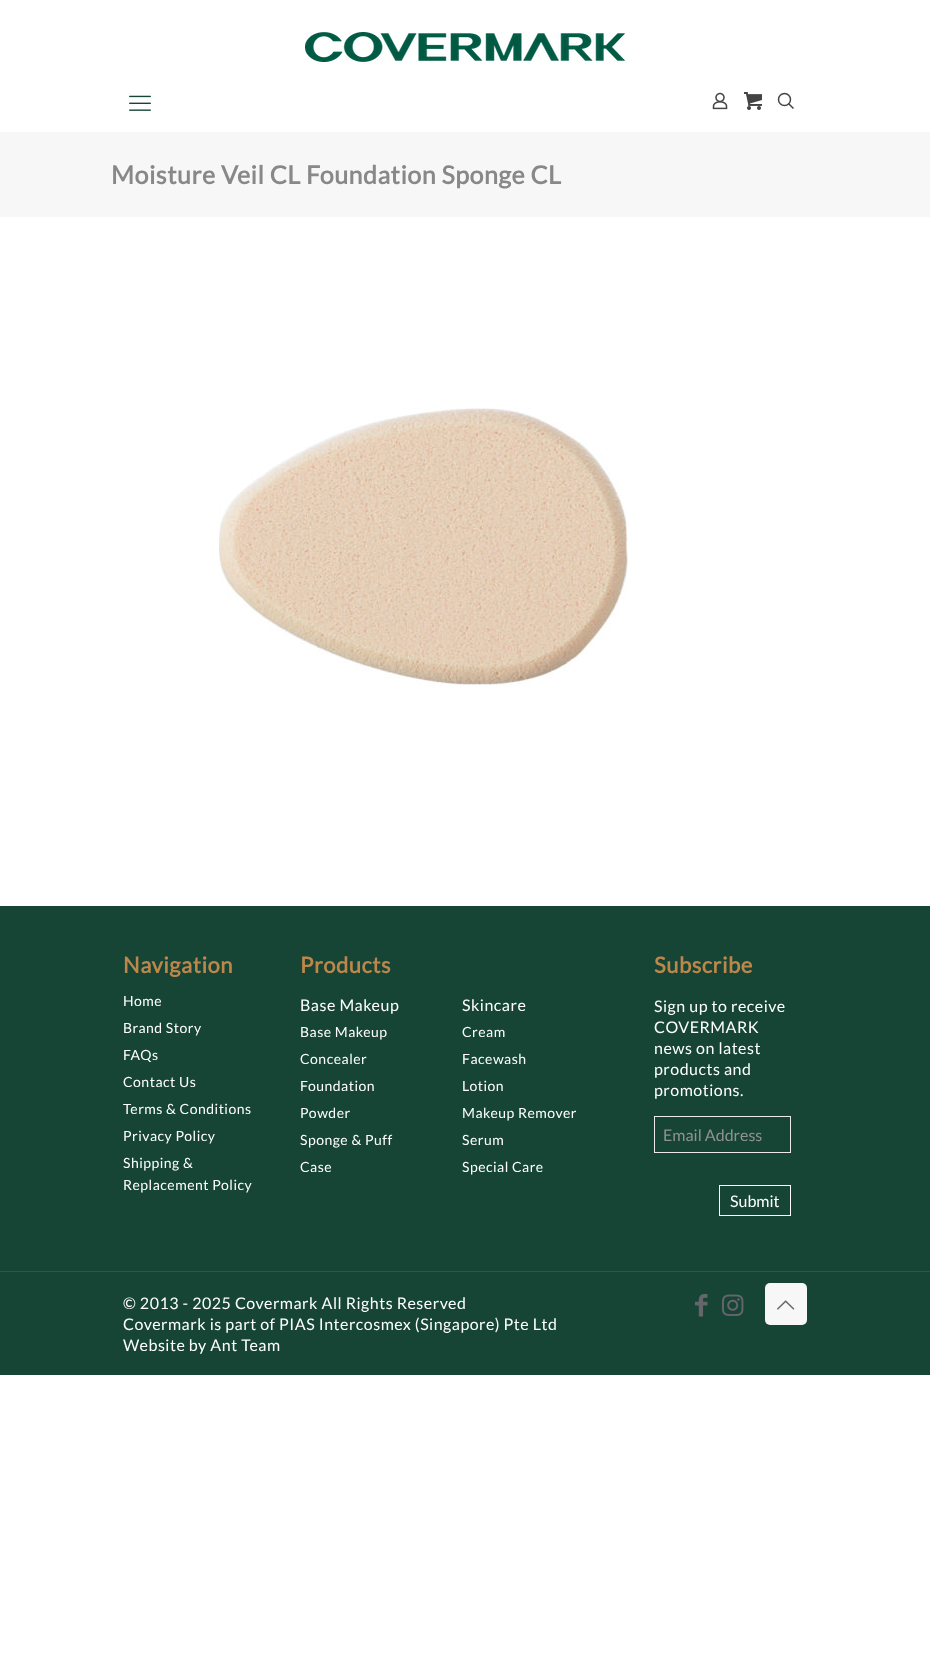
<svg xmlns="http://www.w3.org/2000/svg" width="930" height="1670">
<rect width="100%" height="100%" fill="#fff"/>
<image x="305" y="32" width="320" height="30" href="media/1.png"/>
<image x="129" y="95" width="22" height="16" href="media/2.png"/>
<image x="712" y="92" width="16" height="18" href="media/3.png"/>
<image x="744" y="92" width="18" height="18" href="media/4.png"/>
<circle cx="784.5" cy="99.5" r="6" fill="none" stroke="#444" stroke-width="1.5"/>
<path d="M788.5 103.5l5 5" fill="none" stroke="#444" stroke-width="1.5"/>
<rect y="132" width="930" height="85" fill="#f7f7f7"/>
<text x="111" y="184" style="font-family:Lato;font-size:25px;font-weight:bold;letter-spacing:0.5px;fill:#888">Moisture Veil CL Foundation Sponge CL</text>
<image x="219" y="407" width="409" height="280" href="media/5.png"/>
<rect y="906" width="930" height="469" fill="#164535"/>
<text x="123" y="973" style="font-family:Lato;font-size:22px;font-weight:bold;letter-spacing:0.5px;fill:#bd874b">Navigation</text>
<text x="123" y="1006" style="font-family:Lato;font-size:14px;letter-spacing:0.5px;fill:#fff">Home</text>
<text x="123" y="1033" style="font-family:Lato;font-size:14px;letter-spacing:0.5px;fill:#fff">Brand Story</text>
<text x="123" y="1060" style="font-family:Lato;font-size:14px;letter-spacing:0.5px;fill:#fff">FAQs</text>
<text x="123" y="1087" style="font-family:Lato;font-size:14px;letter-spacing:0.5px;fill:#fff">Contact Us</text>
<text x="123" y="1114" style="font-family:Lato;font-size:14px;letter-spacing:0.5px;fill:#fff">Terms &amp; Conditions</text>
<text x="123" y="1141" style="font-family:Lato;font-size:14px;letter-spacing:0.5px;fill:#fff">Privacy Policy</text>
<text x="123" y="1168" style="font-family:Lato;font-size:14px;letter-spacing:0.5px;fill:#fff">Shipping &amp;</text>
<text x="123" y="1190" style="font-family:Lato;font-size:14px;letter-spacing:0.5px;fill:#fff">Replacement Policy</text>
<text x="300" y="973" style="font-family:Lato;font-size:22px;font-weight:bold;letter-spacing:0.5px;fill:#bd874b">Products</text>
<text x="300" y="1011" style="font-family:Lato;font-size:16px;letter-spacing:0.5px;fill:#fff">Base Makeup</text>
<text x="300" y="1037" style="font-family:Lato;font-size:14px;letter-spacing:0.5px;fill:#fff">Base Makeup</text>
<text x="300" y="1064" style="font-family:Lato;font-size:14px;letter-spacing:0.5px;fill:#fff">Concealer</text>
<text x="300" y="1091" style="font-family:Lato;font-size:14px;letter-spacing:0.5px;fill:#fff">Foundation</text>
<text x="300" y="1118" style="font-family:Lato;font-size:14px;letter-spacing:0.5px;fill:#fff">Powder</text>
<text x="300" y="1145" style="font-family:Lato;font-size:14px;letter-spacing:0.5px;fill:#fff">Sponge &amp; Puff</text>
<text x="300" y="1172" style="font-family:Lato;font-size:14px;letter-spacing:0.5px;fill:#fff">Case</text>
<text x="462" y="1011" style="font-family:Lato;font-size:16px;letter-spacing:0.5px;fill:#fff">Skincare</text>
<text x="462" y="1037" style="font-family:Lato;font-size:14px;letter-spacing:0.5px;fill:#fff">Cream</text>
<text x="462" y="1064" style="font-family:Lato;font-size:14px;letter-spacing:0.5px;fill:#fff">Facewash</text>
<text x="462" y="1091" style="font-family:Lato;font-size:14px;letter-spacing:0.5px;fill:#fff">Lotion</text>
<text x="462" y="1118" style="font-family:Lato;font-size:14px;letter-spacing:0.5px;fill:#fff">Makeup Remover</text>
<text x="462" y="1145" style="font-family:Lato;font-size:14px;letter-spacing:0.5px;fill:#fff">Serum</text>
<text x="462" y="1172" style="font-family:Lato;font-size:14px;letter-spacing:0.5px;fill:#fff">Special Care</text>
<text x="654" y="973" style="font-family:Lato;font-size:22px;font-weight:bold;letter-spacing:0.5px;fill:#bd874b">Subscribe</text>
<text x="654" y="1012" style="font-family:Lato;font-size:16px;letter-spacing:0.5px;fill:#fff">Sign up to receive</text>
<text x="654" y="1033" style="font-family:Lato;font-size:16px;letter-spacing:0.5px;fill:#fff">COVERMARK</text>
<text x="654" y="1054" style="font-family:Lato;font-size:16px;letter-spacing:0.5px;fill:#fff">news on latest</text>
<text x="654" y="1075" style="font-family:Lato;font-size:16px;letter-spacing:0.5px;fill:#fff">products and</text>
<text x="654" y="1096" style="font-family:Lato;font-size:16px;letter-spacing:0.5px;fill:#fff">promotions.</text>
<rect x="654.5" y="1116.5" width="136" height="36" fill="none" stroke="#ebebeb"/>
<text x="663" y="1141" style="font-family:Lato;font-size:16px;fill:#929292">Email Address</text>
<rect x="719.5" y="1185.5" width="71" height="30" fill="none" stroke="#fff"/>
<text x="730" y="1207" style="font-family:Lato;font-size:16px;fill:#fff">Submit</text>
<rect y="1271" width="930" height="1" fill="#2d5849"/>
<text x="123" y="1309" style="font-family:Lato;font-size:16px;letter-spacing:0.5px;fill:#fff">© 2013 - 2025 Covermark All Rights Reserved</text>
<text x="123" y="1330" style="font-family:Lato;font-size:16px;letter-spacing:0.5px;fill:#fff">Covermark is part of PIAS Intercosmex (Singapore) Pte Ltd</text>
<text x="123" y="1351" style="font-family:Lato;font-size:16px;letter-spacing:0.5px;fill:#fff">Website by Ant Team</text>
<image x="695" y="1294" width="13" height="23" href="media/6.png"/>
<image x="722" y="1294" width="22" height="22" href="media/7.png"/>
<rect x="765" y="1283" width="42" height="42" rx="5" fill="#f7f7f7"/>
<image x="777" y="1300" width="18" height="10" href="media/8.png"/>
</svg>
